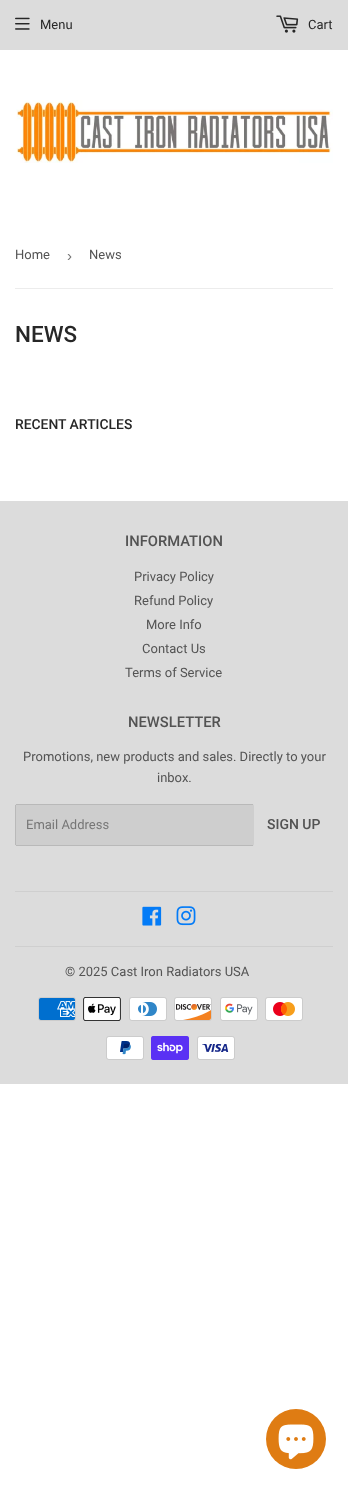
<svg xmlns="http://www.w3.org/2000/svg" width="348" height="1490">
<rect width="100%" height="100%" fill="#fff"/>
<rect width="348" height="50" fill="#dcdcdc"/>
<image x="15" y="17" width="15" height="13" href="media/1.png"/>
<text x="40" y="29" style="font-family:Roboto;font-size:13px;fill:#272727">Menu</text>
<image x="276" y="15" width="23" height="18" href="media/2.png"/>
<text x="308" y="29" style="font-family:Roboto;font-size:13px;fill:#272727">Cart</text>
<image x="16" y="100" width="317" height="63" href="media/3.png"/>
<rect x="15" y="288" width="318" height="1" fill="#ececec"/>
<text x="15" y="259" style="font-family:Roboto;font-size:13px;fill:#535353">Home</text>
<text x="67" y="261" style="font-family:Liberation Sans;font-size:15px;fill:#767676">›</text>
<text x="89" y="259" style="font-family:Roboto;font-size:13px;fill:#535353">News</text>
<text x="15" y="342" style="font-family:Roboto;font-size:22.5px;font-weight:500;fill:#272727">NEWS</text>
<text x="15" y="429" style="font-family:Roboto;font-size:13.9px;font-weight:500;fill:#272727">RECENT ARTICLES</text>
<rect y="501" width="348" height="583" fill="#dcdcdc"/>
<text x="125" y="546" style="font-family:Roboto;font-size:14.75px;font-weight:500;fill:#535353">INFORMATION</text>
<text x="134" y="581" style="font-family:Roboto;font-size:13px;fill:#535353">Privacy Policy</text>
<text x="134" y="605" style="font-family:Roboto;font-size:13px;fill:#535353">Refund Policy</text>
<text x="146" y="629" style="font-family:Roboto;font-size:13px;fill:#535353">More Info</text>
<text x="142" y="653" style="font-family:Roboto;font-size:13px;fill:#535353">Contact Us</text>
<text x="125" y="677" style="font-family:Roboto;font-size:13px;fill:#535353">Terms of Service</text>
<text x="128" y="727" style="font-family:Roboto;font-size:14.75px;font-weight:500;fill:#535353">NEWSLETTER</text>
<text x="23" y="761" style="font-family:Roboto;font-size:13px;fill:#535353">Promotions, new products and sales. Directly to your</text>
<text x="157" y="782" style="font-family:Roboto;font-size:13px;fill:#535353">inbox.</text>
<rect x="15" y="804" width="239" height="42" rx="2" fill="#cecece"/>
<rect x="16" y="804" width="237" height="1" fill="#b9b9b9"/>
<rect x="16" y="845" width="237" height="1" fill="#b9b9b9"/>
<rect x="15" y="805" width="1" height="40" fill="#b9b9b9"/>
<text x="26" y="829" style="font-family:Roboto;font-size:13px;fill:#767676">Email Address</text>
<text x="267" y="829" style="font-family:Roboto;font-size:14px;font-weight:500;fill:#535353">SIGN UP</text>
<rect x="15" y="891" width="318" height="1" fill="#cfcfcf"/>
<image x="142" y="906" width="20" height="20" href="media/4.png"/>
<image x="176" y="906" width="20" height="20" href="media/5.png"/>
<rect x="15" y="946" width="318" height="1" fill="#cfcfcf"/>
<text x="65" y="976" style="font-family:Roboto;font-size:13px;fill:#535353">© 2025 Cast Iron Radiators USA</text>
<image x="38" y="997" width="38" height="24" href="media/6.png"/>
<image x="83" y="997" width="38" height="24" href="media/7.png"/>
<image x="129" y="997" width="38" height="24" href="media/8.png"/>
<image x="174" y="997" width="38" height="24" href="media/9.png"/>
<image x="220" y="997" width="38" height="24" href="media/10.png"/>
<image x="265" y="997" width="38" height="24" href="media/11.png"/>
<image x="106" y="1036" width="38" height="24" href="media/12.png"/>
<image x="151" y="1036" width="38" height="24" href="media/13.png"/>
<image x="197" y="1036" width="38" height="24" href="media/14.png"/>
<circle cx="296" cy="1439" r="30" fill="#df7c13"/>
<image x="278" y="1424" width="36" height="36" href="media/15.png"/>
</svg>
